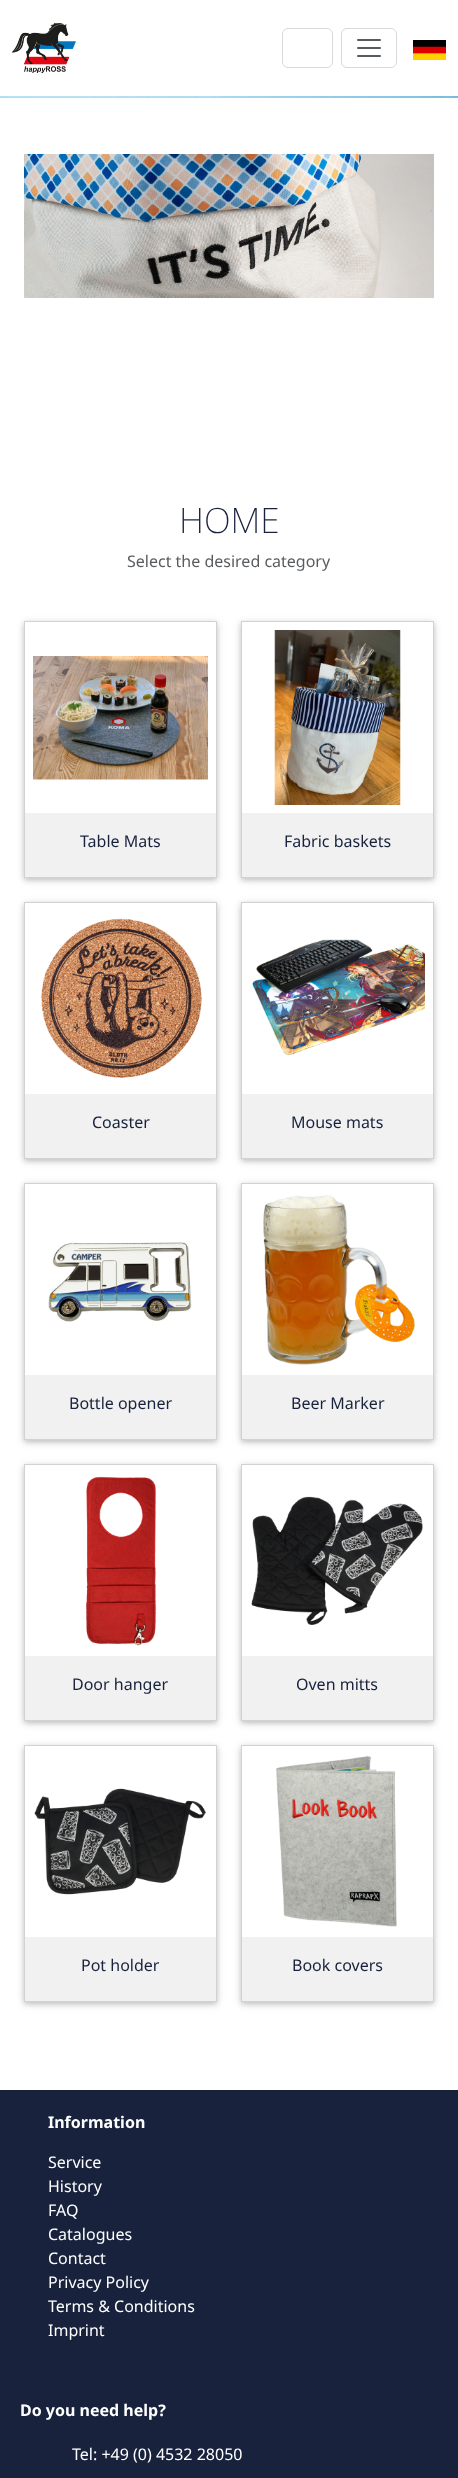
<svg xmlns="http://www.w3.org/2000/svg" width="458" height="2478">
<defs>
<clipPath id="clip1"><path d="M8 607h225v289h-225zm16 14h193v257h-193z" clip-rule="evenodd"/></clipPath>
<clipPath id="clip2"><path d="M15 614h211v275h-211zm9 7h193v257h-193z" clip-rule="evenodd"/></clipPath>
<clipPath id="clip3"><path d="M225 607h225v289h-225zm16 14h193v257h-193z" clip-rule="evenodd"/></clipPath>
<clipPath id="clip4"><path d="M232 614h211v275h-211zm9 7h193v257h-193z" clip-rule="evenodd"/></clipPath>
<clipPath id="clip5"><path d="M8 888h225v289h-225zm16 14h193v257h-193z" clip-rule="evenodd"/></clipPath>
<clipPath id="clip6"><path d="M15 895h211v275h-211zm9 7h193v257h-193z" clip-rule="evenodd"/></clipPath>
<clipPath id="clip7"><path d="M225 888h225v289h-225zm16 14h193v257h-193z" clip-rule="evenodd"/></clipPath>
<clipPath id="clip8"><path d="M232 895h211v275h-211zm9 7h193v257h-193z" clip-rule="evenodd"/></clipPath>
<clipPath id="clip9"><path d="M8 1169h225v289h-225zm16 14h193v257h-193z" clip-rule="evenodd"/></clipPath>
<clipPath id="clip10"><path d="M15 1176h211v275h-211zm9 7h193v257h-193z" clip-rule="evenodd"/></clipPath>
<clipPath id="clip11"><path d="M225 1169h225v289h-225zm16 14h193v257h-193z" clip-rule="evenodd"/></clipPath>
<clipPath id="clip12"><path d="M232 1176h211v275h-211zm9 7h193v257h-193z" clip-rule="evenodd"/></clipPath>
<clipPath id="clip13"><path d="M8 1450h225v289h-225zm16 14h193v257h-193z" clip-rule="evenodd"/></clipPath>
<clipPath id="clip14"><path d="M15 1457h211v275h-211zm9 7h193v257h-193z" clip-rule="evenodd"/></clipPath>
<clipPath id="clip15"><path d="M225 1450h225v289h-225zm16 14h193v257h-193z" clip-rule="evenodd"/></clipPath>
<clipPath id="clip16"><path d="M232 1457h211v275h-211zm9 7h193v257h-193z" clip-rule="evenodd"/></clipPath>
<clipPath id="clip17"><path d="M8 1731h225v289h-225zm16 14h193v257h-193z" clip-rule="evenodd"/></clipPath>
<clipPath id="clip18"><path d="M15 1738h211v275h-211zm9 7h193v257h-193z" clip-rule="evenodd"/></clipPath>
<clipPath id="clip19"><path d="M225 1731h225v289h-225zm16 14h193v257h-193z" clip-rule="evenodd"/></clipPath>
<clipPath id="clip20"><path d="M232 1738h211v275h-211zm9 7h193v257h-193z" clip-rule="evenodd"/></clipPath>
</defs>
<rect width="100%" height="100%" fill="#fff"/>
<image x="12" y="23" width="64" height="50" href="media/1.png"/>
<rect x="282.5" y="28.5" width="50" height="39" rx="5.5" fill="none" stroke="#d9d9d9"/>
<rect x="341.5" y="28.5" width="55" height="39" rx="5.5" fill="none" stroke="#d9d9d9"/>
<image x="357" y="39" width="24" height="18" href="media/2.png"/>
<image x="413" y="40" width="33" height="20" href="media/3.png"/>
<image x="0" y="96" width="458" height="2" href="media/4.png"/>
<image x="24" y="154" width="410" height="144" href="media/5.png"/>
<text x="179" y="533" style="font-family:Noto Sans;font-size:35px;font-weight:200;fill:#18223d">HOME</text>
<text x="127" y="567" style="font-family:Noto Sans;font-size:16px;fill:#595c5f">Select the desired category</text>
<g clip-path="url(#clip1)">
<rect x="24" y="623" width="193" height="257" fill="#0000001f" filter="blur(5px)"/>
</g>
<g clip-path="url(#clip2)">
<rect x="24" y="623" width="193" height="257" fill="#00000029" filter="blur(2.5px)"/>
</g>
<rect x="24.5" y="621.5" width="192" height="256" fill="none" stroke="#d2d2d2"/>
<image x="33" y="656" width="175" height="124" href="media/6.png"/>
<rect x="25" y="813" width="191" height="64" fill="#f1f1f1"/>
<text x="80" y="847" style="font-family:Noto Sans;font-size:16px;fill:#18223d">Table Mats</text>
<g clip-path="url(#clip3)">
<rect x="241" y="623" width="193" height="257" fill="#0000001f" filter="blur(5px)"/>
</g>
<g clip-path="url(#clip4)">
<rect x="241" y="623" width="193" height="257" fill="#00000029" filter="blur(2.5px)"/>
</g>
<rect x="241.5" y="621.5" width="192" height="256" fill="none" stroke="#d2d2d2"/>
<image x="274" y="630" width="127" height="175" href="media/7.png"/>
<rect x="242" y="813" width="191" height="64" fill="#f1f1f1"/>
<text x="284" y="847" style="font-family:Noto Sans;font-size:16px;fill:#18223d">Fabric baskets</text>
<g clip-path="url(#clip5)">
<rect x="24" y="904" width="193" height="257" fill="#0000001f" filter="blur(5px)"/>
</g>
<g clip-path="url(#clip6)">
<rect x="24" y="904" width="193" height="257" fill="#00000029" filter="blur(2.5px)"/>
</g>
<rect x="24.5" y="902.5" width="192" height="256" fill="none" stroke="#d2d2d2"/>
<image x="41" y="918" width="161" height="160" href="media/8.png"/>
<rect x="25" y="1094" width="191" height="64" fill="#f1f1f1"/>
<text x="92" y="1128" style="font-family:Noto Sans;font-size:16px;fill:#18223d">Coaster</text>
<g clip-path="url(#clip7)">
<rect x="241" y="904" width="193" height="257" fill="#0000001f" filter="blur(5px)"/>
</g>
<g clip-path="url(#clip8)">
<rect x="241" y="904" width="193" height="257" fill="#00000029" filter="blur(2.5px)"/>
</g>
<rect x="241.5" y="902.5" width="192" height="256" fill="none" stroke="#d2d2d2"/>
<image x="252" y="939" width="173" height="116" href="media/9.png"/>
<rect x="242" y="1094" width="191" height="64" fill="#f1f1f1"/>
<text x="291" y="1128" style="font-family:Noto Sans;font-size:16px;fill:#18223d">Mouse mats</text>
<g clip-path="url(#clip9)">
<rect x="24" y="1185" width="193" height="257" fill="#0000001f" filter="blur(5px)"/>
</g>
<g clip-path="url(#clip10)">
<rect x="24" y="1185" width="193" height="257" fill="#00000029" filter="blur(2.5px)"/>
</g>
<rect x="24.5" y="1183.5" width="192" height="256" fill="none" stroke="#d2d2d2"/>
<image x="48" y="1242" width="144" height="80" href="media/10.png"/>
<rect x="25" y="1375" width="191" height="64" fill="#f1f1f1"/>
<text x="69" y="1409" style="font-family:Noto Sans;font-size:16px;fill:#18223d">Bottle opener</text>
<g clip-path="url(#clip11)">
<rect x="241" y="1185" width="193" height="257" fill="#0000001f" filter="blur(5px)"/>
</g>
<g clip-path="url(#clip12)">
<rect x="241" y="1185" width="193" height="257" fill="#00000029" filter="blur(2.5px)"/>
</g>
<rect x="241.5" y="1183.5" width="192" height="256" fill="none" stroke="#d2d2d2"/>
<image x="263" y="1195" width="152" height="170" href="media/11.png"/>
<rect x="242" y="1375" width="191" height="64" fill="#f1f1f1"/>
<text x="291" y="1409" style="font-family:Noto Sans;font-size:16px;fill:#18223d">Beer Marker</text>
<g clip-path="url(#clip13)">
<rect x="24" y="1466" width="193" height="257" fill="#0000001f" filter="blur(5px)"/>
</g>
<g clip-path="url(#clip14)">
<rect x="24" y="1466" width="193" height="257" fill="#00000029" filter="blur(2.5px)"/>
</g>
<rect x="24.5" y="1464.5" width="192" height="256" fill="none" stroke="#d2d2d2"/>
<image x="86" y="1476" width="71" height="170" href="media/12.png"/>
<rect x="25" y="1656" width="191" height="64" fill="#f1f1f1"/>
<text x="72" y="1690" style="font-family:Noto Sans;font-size:16px;fill:#18223d">Door hanger</text>
<g clip-path="url(#clip15)">
<rect x="241" y="1466" width="193" height="257" fill="#0000001f" filter="blur(5px)"/>
</g>
<g clip-path="url(#clip16)">
<rect x="241" y="1466" width="193" height="257" fill="#00000029" filter="blur(2.5px)"/>
</g>
<rect x="241.5" y="1464.5" width="192" height="256" fill="none" stroke="#d2d2d2"/>
<image x="251" y="1496" width="172" height="129" href="media/13.png"/>
<rect x="242" y="1656" width="191" height="64" fill="#f1f1f1"/>
<text x="296" y="1690" style="font-family:Noto Sans;font-size:16px;fill:#18223d">Oven mitts</text>
<g clip-path="url(#clip17)">
<rect x="24" y="1747" width="193" height="257" fill="#0000001f" filter="blur(5px)"/>
</g>
<g clip-path="url(#clip18)">
<rect x="24" y="1747" width="193" height="257" fill="#00000029" filter="blur(2.5px)"/>
</g>
<rect x="24.5" y="1745.5" width="192" height="256" fill="none" stroke="#d2d2d2"/>
<image x="34" y="1788" width="172" height="107" href="media/14.png"/>
<rect x="25" y="1937" width="191" height="64" fill="#f1f1f1"/>
<text x="81" y="1971" style="font-family:Noto Sans;font-size:16px;fill:#18223d">Pot holder</text>
<g clip-path="url(#clip19)">
<rect x="241" y="1747" width="193" height="257" fill="#0000001f" filter="blur(5px)"/>
</g>
<g clip-path="url(#clip20)">
<rect x="241" y="1747" width="193" height="257" fill="#00000029" filter="blur(2.5px)"/>
</g>
<rect x="241.5" y="1745.5" width="192" height="256" fill="none" stroke="#d2d2d2"/>
<image x="276" y="1756" width="121" height="171" href="media/15.png"/>
<rect x="242" y="1937" width="191" height="64" fill="#f1f1f1"/>
<text x="292" y="1971" style="font-family:Noto Sans;font-size:16px;fill:#18223d">Book covers</text>
<rect y="2090" width="458" height="388" fill="#18223d"/>
<text x="48" y="2128" style="font-family:Noto Sans;font-size:16px;font-weight:bold;fill:#fff">Information</text>
<text x="48" y="2168" style="font-family:Noto Sans;font-size:16px;fill:#fff">Service</text>
<text x="48" y="2192" style="font-family:Noto Sans;font-size:16px;fill:#fff">History</text>
<text x="48" y="2216" style="font-family:Noto Sans;font-size:16px;fill:#fff">FAQ</text>
<text x="48" y="2240" style="font-family:Noto Sans;font-size:16px;fill:#fff">Catalogues</text>
<text x="48" y="2264" style="font-family:Noto Sans;font-size:16px;fill:#fff">Contact</text>
<text x="48" y="2288" style="font-family:Noto Sans;font-size:16px;fill:#fff">Privacy Policy</text>
<text x="48" y="2312" style="font-family:Noto Sans;font-size:16px;fill:#fff">Terms &amp; Conditions</text>
<text x="48" y="2336" style="font-family:Noto Sans;font-size:16px;fill:#fff">Imprint</text>
<text x="20" y="2416" style="font-family:Noto Sans;font-size:16px;font-weight:bold;fill:#fff">Do you need help?</text>
<text x="72" y="2460" style="font-family:Noto Sans;font-size:16px;fill:#fff">Tel: +49 (0) 4532 28050</text>
</svg>
